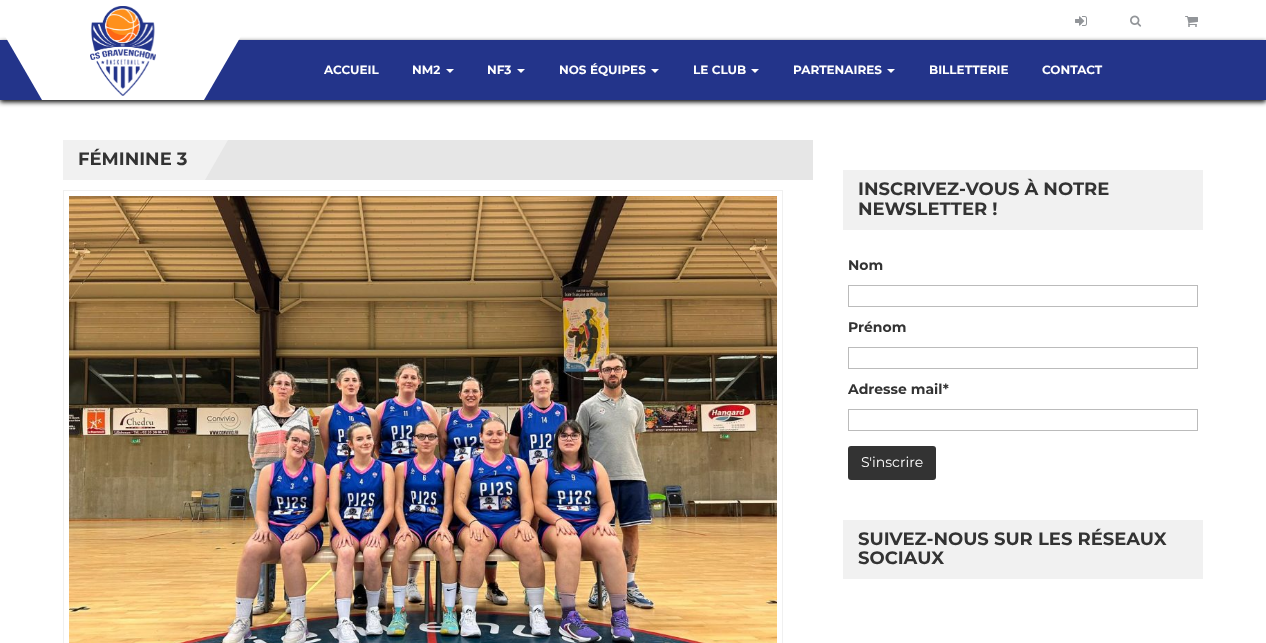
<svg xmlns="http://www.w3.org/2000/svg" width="1266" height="643">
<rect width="100%" height="100%" fill="#fff"/>
<rect y="42" width="1266" height="60" fill="#000" filter="blur(2.5px)"/>
<rect y="40" width="1266" height="60" fill="#23348a"/>
<rect x="48" y="36" width="150" height="64" fill="#fff"/>
<path d="M-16 0h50l58 100h-50z" fill="#fff"/>
<path d="M212 0h50l-58 100h-50z" fill="#fff"/>
<image x="90" y="6" width="66" height="90" href="media/1.png"/>
<image x="1075" y="16" width="12" height="10" href="media/2.png"/>
<image x="1130" y="15" width="12" height="12" href="media/3.png"/>
<image x="1185" y="16" width="13" height="11" href="media/4.png"/>
<text x="324" y="74" style="font-family:Montserrat;font-size:12px;font-weight:bold;fill:#fff">ACCUEIL</text>
<text x="412" y="74" style="font-family:Montserrat;font-size:12px;font-weight:bold;fill:#fff">NM2</text>
<path d="M446 69h8l-4 4z" fill="#fff"/>
<text x="487" y="74" style="font-family:Montserrat;font-size:12px;font-weight:bold;fill:#fff">NF3</text>
<path d="M517 69h8l-4 4z" fill="#fff"/>
<text x="559" y="74" style="font-family:Montserrat;font-size:12px;font-weight:bold;fill:#fff">NOS ÉQUIPES</text>
<path d="M651 69h8l-4 4z" fill="#fff"/>
<text x="693" y="74" style="font-family:Montserrat;font-size:12px;font-weight:bold;fill:#fff">LE CLUB</text>
<path d="M751 69h8l-4 4z" fill="#fff"/>
<text x="793" y="74" style="font-family:Montserrat;font-size:12px;font-weight:bold;fill:#fff">PARTENAIRES</text>
<path d="M887 69h8l-4 4z" fill="#fff"/>
<text x="929" y="74" style="font-family:Montserrat;font-size:12px;font-weight:bold;fill:#fff">BILLETTERIE</text>
<text x="1042" y="74" style="font-family:Montserrat;font-size:12px;font-weight:bold;fill:#fff">CONTACT</text>
<rect x="205" y="140" width="608" height="40" fill="#e6e6e6"/>
<rect x="63" y="140" width="140" height="40" fill="#f1f1f1"/>
<text x="78" y="165" style="font-family:Montserrat;font-size:18px;font-weight:bold;fill:#333">FÉMININE 3</text>
<path d="M203 140h25l-23 40h-25z" fill="#f1f1f1"/>
<rect x="63.5" y="190.5" width="719" height="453" fill="none" stroke="#f0f0f0"/>
<image x="69" y="196" width="708" height="447" href="media/5.png"/>
<rect x="843" y="170" width="360" height="60" fill="#f1f1f1"/>
<text x="858" y="195" style="font-family:Montserrat;font-size:18px;font-weight:bold;fill:#333">INSCRIVEZ-VOUS À NOTRE</text>
<text x="858" y="215" style="font-family:Montserrat;font-size:18px;font-weight:bold;fill:#333">NEWSLETTER !</text>
<text x="848" y="270" style="font-family:Montserrat;font-size:14px;font-weight:bold;fill:#333">Nom</text>
<rect x="848.5" y="285.5" width="349" height="21" fill="none" stroke="#bbb"/>
<text x="848" y="332" style="font-family:Montserrat;font-size:14px;font-weight:bold;fill:#333">Prénom</text>
<rect x="848.5" y="347.5" width="349" height="21" fill="none" stroke="#bbb"/>
<text x="848" y="394" style="font-family:Montserrat;font-size:14px;font-weight:bold;fill:#333">Adresse mail*</text>
<rect x="848.5" y="409.5" width="349" height="21" fill="none" stroke="#bbb"/>
<rect x="848" y="446" width="88" height="34" rx="3" fill="#333"/>
<text x="861" y="467" style="font-family:Montserrat;font-size:14px;fill:#fff">S'inscrire</text>
<rect x="843" y="520" width="360" height="59" fill="#f1f1f1"/>
<text x="858" y="545" style="font-family:Montserrat;font-size:18px;font-weight:bold;fill:#333">SUIVEZ-NOUS SUR LES RÉSEAUX</text>
<text x="858" y="564" style="font-family:Montserrat;font-size:18px;font-weight:bold;fill:#333">SOCIAUX</text>
</svg>
